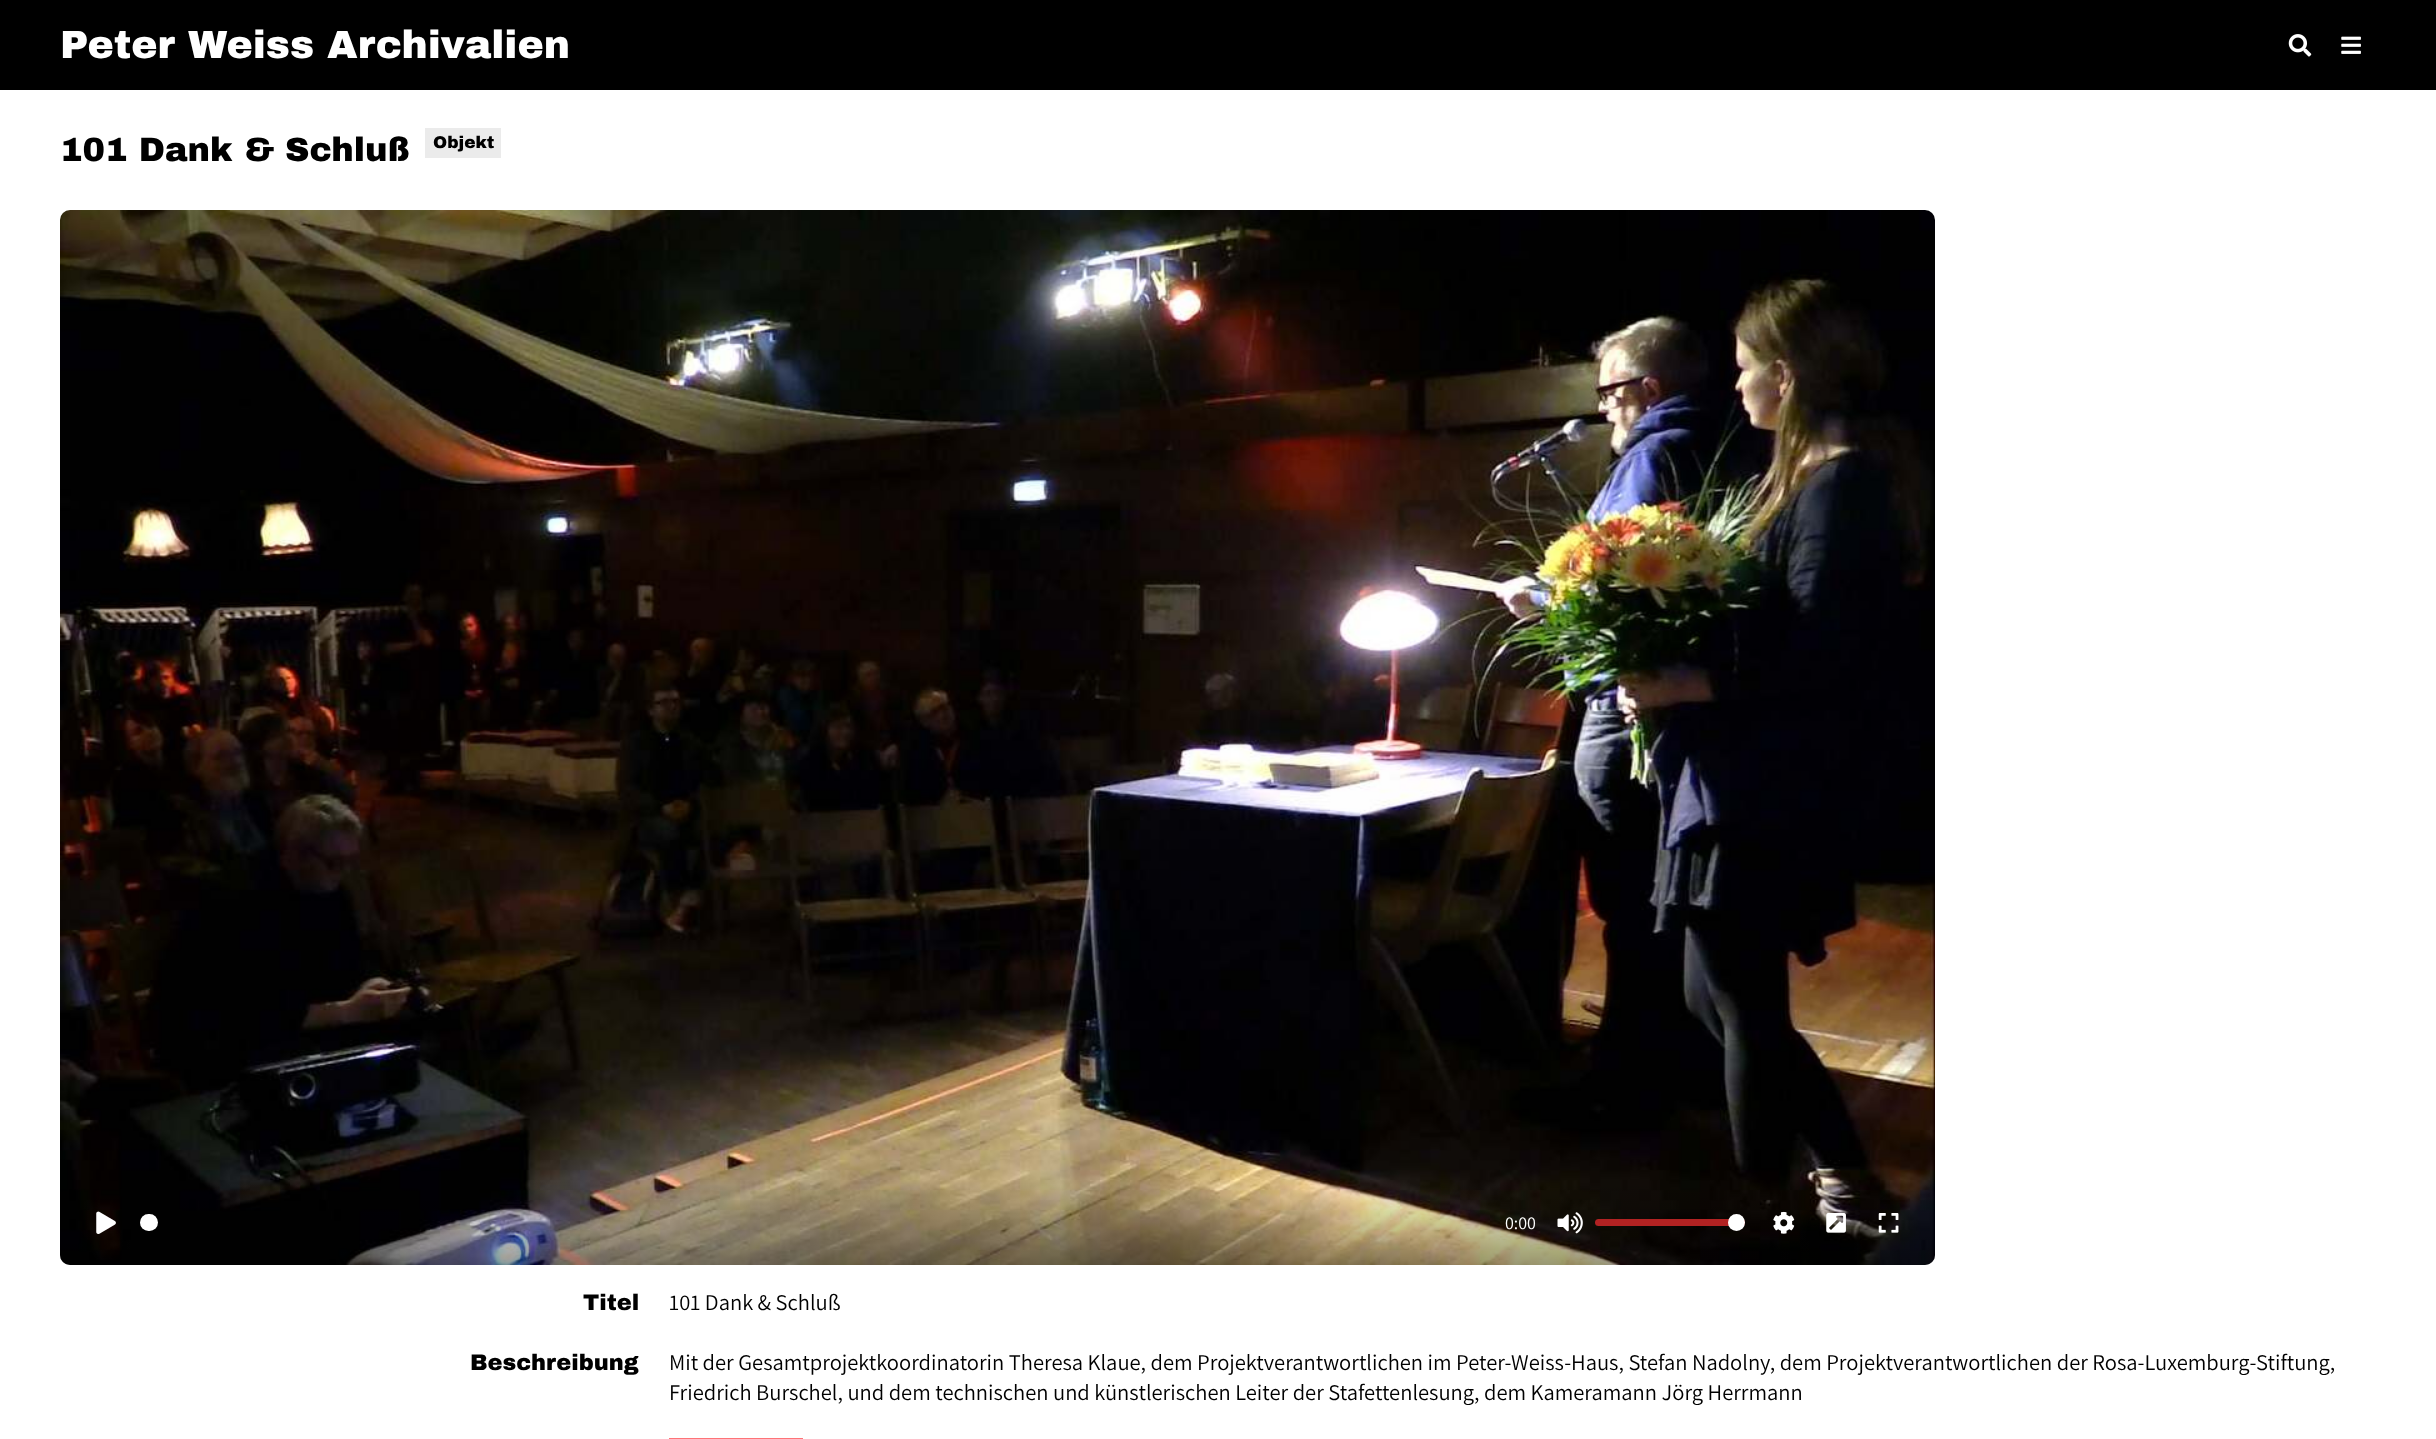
<svg xmlns="http://www.w3.org/2000/svg" width="2436" height="1439">
<defs>
<linearGradient id="g1" gradientUnits="userSpaceOnUse" x1="998" y1="1180" x2="998" y2="1265"><stop offset="0" stop-color="#000" stop-opacity="0"/><stop offset="1" stop-color="#000" stop-opacity="0.4"/></linearGradient>
</defs>
<rect width="100%" height="100%" fill="#fff"/>
<rect width="2436" height="90" fill="#000"/>
<text x="60" y="58" style="font-family:Archivo Black;font-size:39.4px;font-weight:900;fill:#fff">Peter Weiss Archivalien</text>
<image x="2288" y="34" width="24" height="23" href="media/1.png"/>
<image x="2341" y="36" width="20" height="18" href="media/2.png"/>
<text x="60" y="161" style="font-family:Archivo Black;font-size:33.75px;font-weight:900;fill:#000">101 Dank &amp; Schluß</text>
<rect x="425" y="128" width="76" height="30" fill="#ebebeb"/>
<text x="433" y="148" style="font-family:Archivo Black;font-size:17px;font-weight:900;fill:#000">Objekt</text>
<image x="60" y="210" width="1875" height="1055" href="media/3.png"/>
<path d="M60 1180h1875v75c0 5.5-4.5 10-10 10h-1855c-5.5 0-10-4.5-10-10z" fill="url(#g1)"/>
<image x="96" y="1211" width="20" height="23" href="media/4.png"/>
<rect x="140" y="1214" width="18" height="17" rx="8.5" fill="#fff"/>
<text x="1505" y="1229" style="font-family:Assistant;font-size:18px;fill:#fff">0:00</text>
<image x="1557" y="1212" width="26" height="22" href="media/5.png"/>
<rect x="1595" y="1219" width="150" height="7" rx="3.5" fill="#b22222"/>
<circle cx="1736.5" cy="1222.5" r="8.5" fill="#fff"/>
<image x="1773" y="1211" width="22" height="23" href="media/6.png"/>
<image x="1826" y="1213" width="20" height="20" href="media/7.png"/>
<image x="1878" y="1213" width="21" height="20" href="media/8.png"/>
<text x="583" y="1310" style="font-family:Archivo Black;font-size:22.5px;font-weight:900;fill:#000">Titel</text>
<text x="669" y="1310" style="font-family:Assistant;font-size:22.5px;fill:#000">101 Dank &amp; Schluß</text>
<text x="470" y="1370" style="font-family:Archivo Black;font-size:22.5px;font-weight:900;fill:#000">Beschreibung</text>
<text x="669" y="1370" style="font-family:Assistant;font-size:22.5px;fill:#000">Mit der Gesamtprojektkoordinatorin Theresa Klaue, dem Projektverantwortlichen im Peter-Weiss-Haus, Stefan Nadolny, dem Projektverantwortlichen der Rosa-Luxemburg-Stiftung,</text>
<text x="669" y="1400" style="font-family:Assistant;font-size:22.5px;fill:#000">Friedrich Burschel, und dem technischen und künstlerischen Leiter der Stafettenlesung, dem Kameramann Jörg Herrmann</text>
<rect x="669" y="1438" width="134" height="1" fill="#ff7377"/>
</svg>
